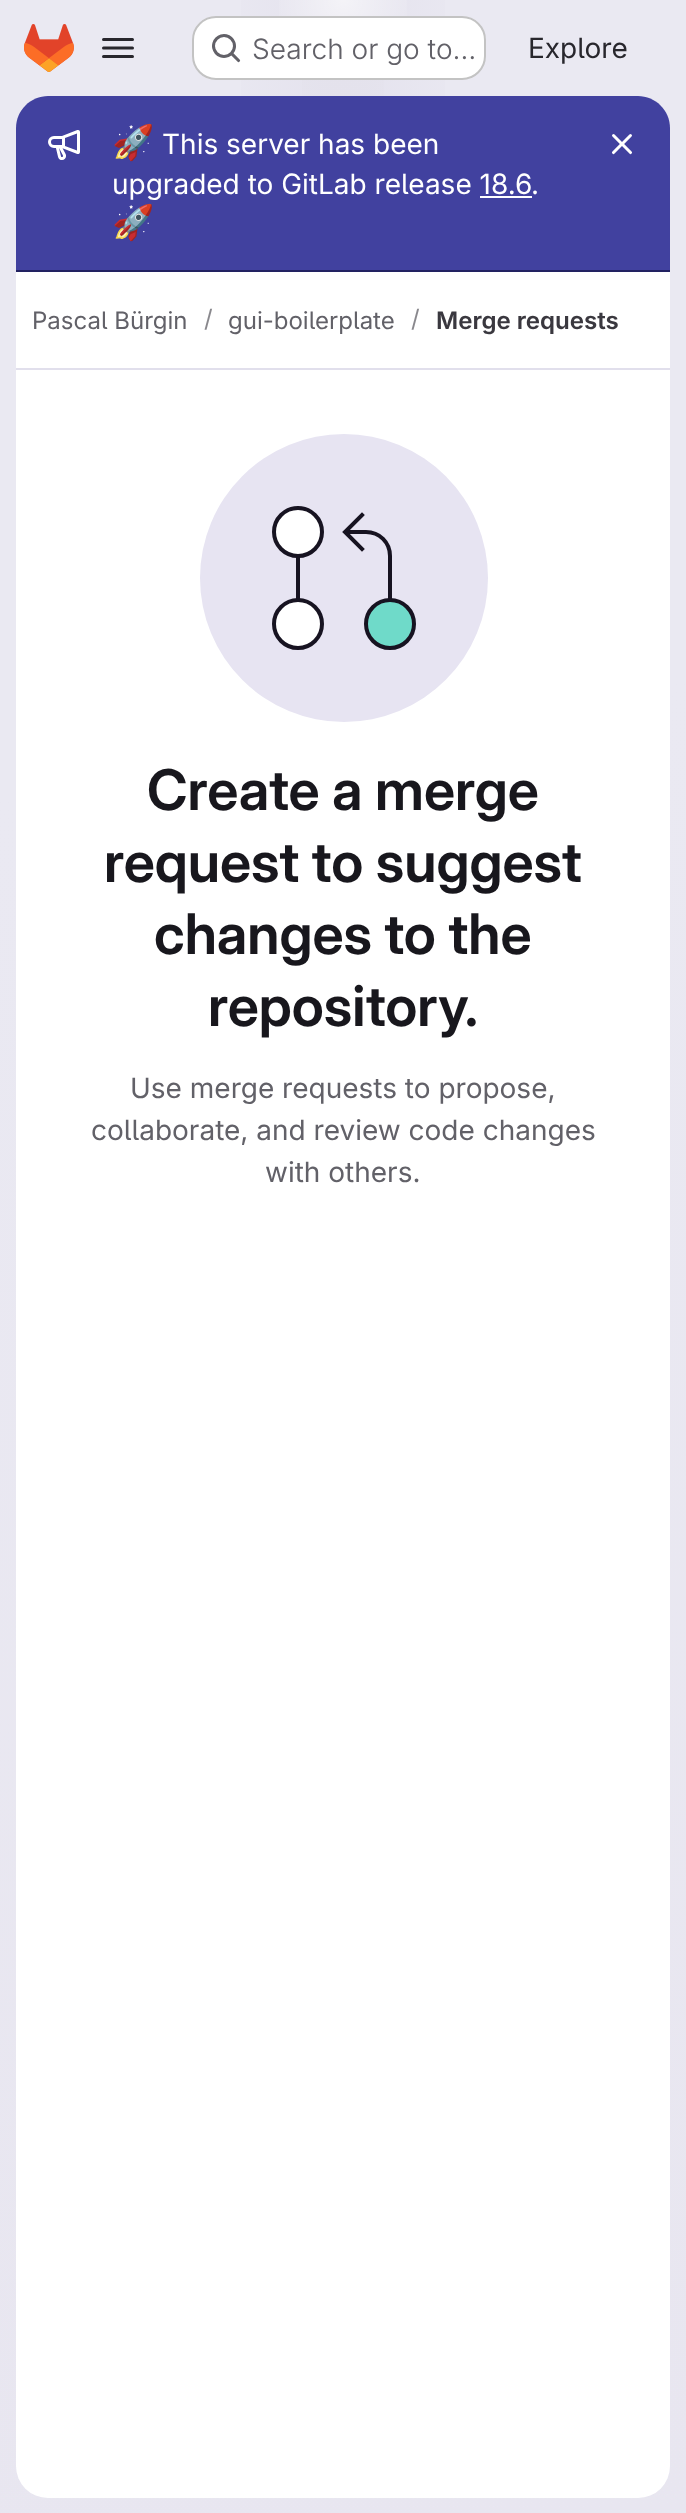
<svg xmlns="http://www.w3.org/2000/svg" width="686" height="2513">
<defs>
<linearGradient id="g1" gradientUnits="userSpaceOnUse" x1="568" y1="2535" x2="118" y2="-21"><stop offset="0" stop-color="#e8e6f0"/><stop offset="0.7" stop-color="#eae9f2"/></linearGradient>
<radialGradient id="g2" gradientUnits="userSpaceOnUse" cx="0" cy="0" r="1" gradientTransform="matrix(343 0 0 2514 343 0)"><stop offset="0" stop-color="#e4e2ed"/><stop offset="0.41" stop-color="#e4e2ed" stop-opacity="0"/></radialGradient>
<radialGradient id="g3" gradientUnits="userSpaceOnUse" cx="0" cy="0" r="1" gradientTransform="matrix(343 0 0 2514 343 0)"><stop offset="0" stop-color="#e4e2ec"/><stop offset="0.29" stop-color="#e4e2ec" stop-opacity="0"/></radialGradient>
<radialGradient id="g4" gradientUnits="userSpaceOnUse" cx="343" cy="0" r="2537"><stop offset="0" stop-color="#fff" stop-opacity="0.6"/><stop offset="0.03" stop-color="#fff" stop-opacity="0"/></radialGradient>
</defs>
<rect width="100%" height="100%" fill="#fff"/>
<rect width="686" height="2513" fill="url(#g1)"/>
<rect x="241" width="204" height="96" fill="url(#g2)"/>
<rect x="302" y="24" width="82" height="72" fill="url(#g3)"/>
<rect x="279" width="128" height="65" fill="url(#g4)"/>
<image x="24" y="24" width="50" height="48" href="media/1.png"/>
<image x="102" y="38" width="32" height="20" href="media/2.png"/>
<rect x="192" y="16" width="294" height="64" rx="24" fill="#fff"/>
<rect x="193" y="17" width="292" height="62" rx="23" fill="none" stroke="#0505063d" stroke-width="2"/>
<image x="212" y="34" width="29" height="29" href="media/3.png"/>
<text x="252" y="59" style="font-family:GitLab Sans;font-size:28px;font-weight:300;fill:#626168">Search or go to…</text>
<text x="528" y="58" style="font-family:GitLab Sans;font-size:28px;fill:#28272d">Explore</text>
<rect x="16" y="96" width="654" height="2402" rx="32" fill="#fff"/>
<path d="M48 96h590c17.5 0 32 14.5 32 32v144h-654v-144c0-17.5 14.5-32 32-32z" fill="#41419f"/>
<rect x="16" y="270" width="654" height="2" fill="#222261"/>
<image x="48" y="130" width="32" height="30" href="media/4.png"/>
<text x="112" y="154" style="font-family:Noto Color Emoji;font-size:34px;fill:#fff">🚀</text>
<text x="162" y="154" style="font-family:GitLab Sans;font-size:28px;fill:#fff">This server has been</text>
<text x="112" y="194" style="font-family:GitLab Sans;font-size:28px;fill:#fff">upgraded to GitLab release 18.6</text>
<text x="531" y="194" style="font-family:GitLab Sans;font-size:28px;fill:#fff">.</text>
<rect x="480" y="196" width="52" height="2" fill="#fff"/>
<text x="112" y="234" style="font-family:Noto Color Emoji;font-size:34px;fill:#fff">🚀</text>
<image x="612" y="134" width="20" height="21" href="media/5.png"/>
<rect x="16" y="368" width="654" height="2" fill="#e1dfec"/>
<text x="32" y="329" style="font-family:GitLab Sans;font-size:24px;fill:#626168">Pascal Bürgin</text>
<text x="204" y="327" style="font-family:GitLab Sans;font-size:24px;fill:#89888d">/</text>
<text x="228" y="329" style="font-family:GitLab Sans;font-size:24px;fill:#626168">gui-boilerplate</text>
<text x="411" y="327" style="font-family:GitLab Sans;font-size:24px;fill:#89888d">/</text>
<text x="436" y="329" style="font-family:'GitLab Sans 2';font-size:24px;font-weight:600;fill:#3a383f">Merge requests</text>
<circle cx="344" cy="578" r="144" fill="#e7e4f2"/>
<circle cx="298" cy="624" r="24" fill="#fff" stroke="#171321" stroke-width="4"/>
<rect x="296" y="554" width="4" height="48" fill="#171321"/>
<circle cx="298" cy="532" r="24" fill="#fff" stroke="#171321" stroke-width="4"/>
<circle cx="390" cy="624" r="24" fill="#6fdac9" stroke="#171321" stroke-width="4"/>
<path d="M390 600v-44c0-13.5-10.5-24-24-24h-18" fill="none" stroke="#171321" stroke-width="4" stroke-linecap="square"/>
<path d="M362 515l-17 17l17 17" fill="none" stroke="#171321" stroke-width="4" stroke-linecap="square"/>
<text x="147" y="810" style="font-family:GitLab Sans;font-size:56px;font-weight:600;fill:#18171d">Create a merge</text>
<text x="104" y="882" style="font-family:GitLab Sans;font-size:56px;font-weight:600;fill:#18171d">request to suggest</text>
<text x="154" y="954" style="font-family:GitLab Sans;font-size:56px;font-weight:600;fill:#18171d">changes to the</text>
<text x="208" y="1026" style="font-family:GitLab Sans;font-size:56px;font-weight:600;fill:#18171d">repository.</text>
<text x="130" y="1098" style="font-family:GitLab Sans;font-size:28px;fill:#626168">Use merge requests to propose,</text>
<text x="91" y="1140" style="font-family:GitLab Sans;font-size:28px;fill:#626168">collaborate, and review code changes</text>
<text x="265" y="1182" style="font-family:GitLab Sans;font-size:28px;fill:#626168">with others.</text>
</svg>
